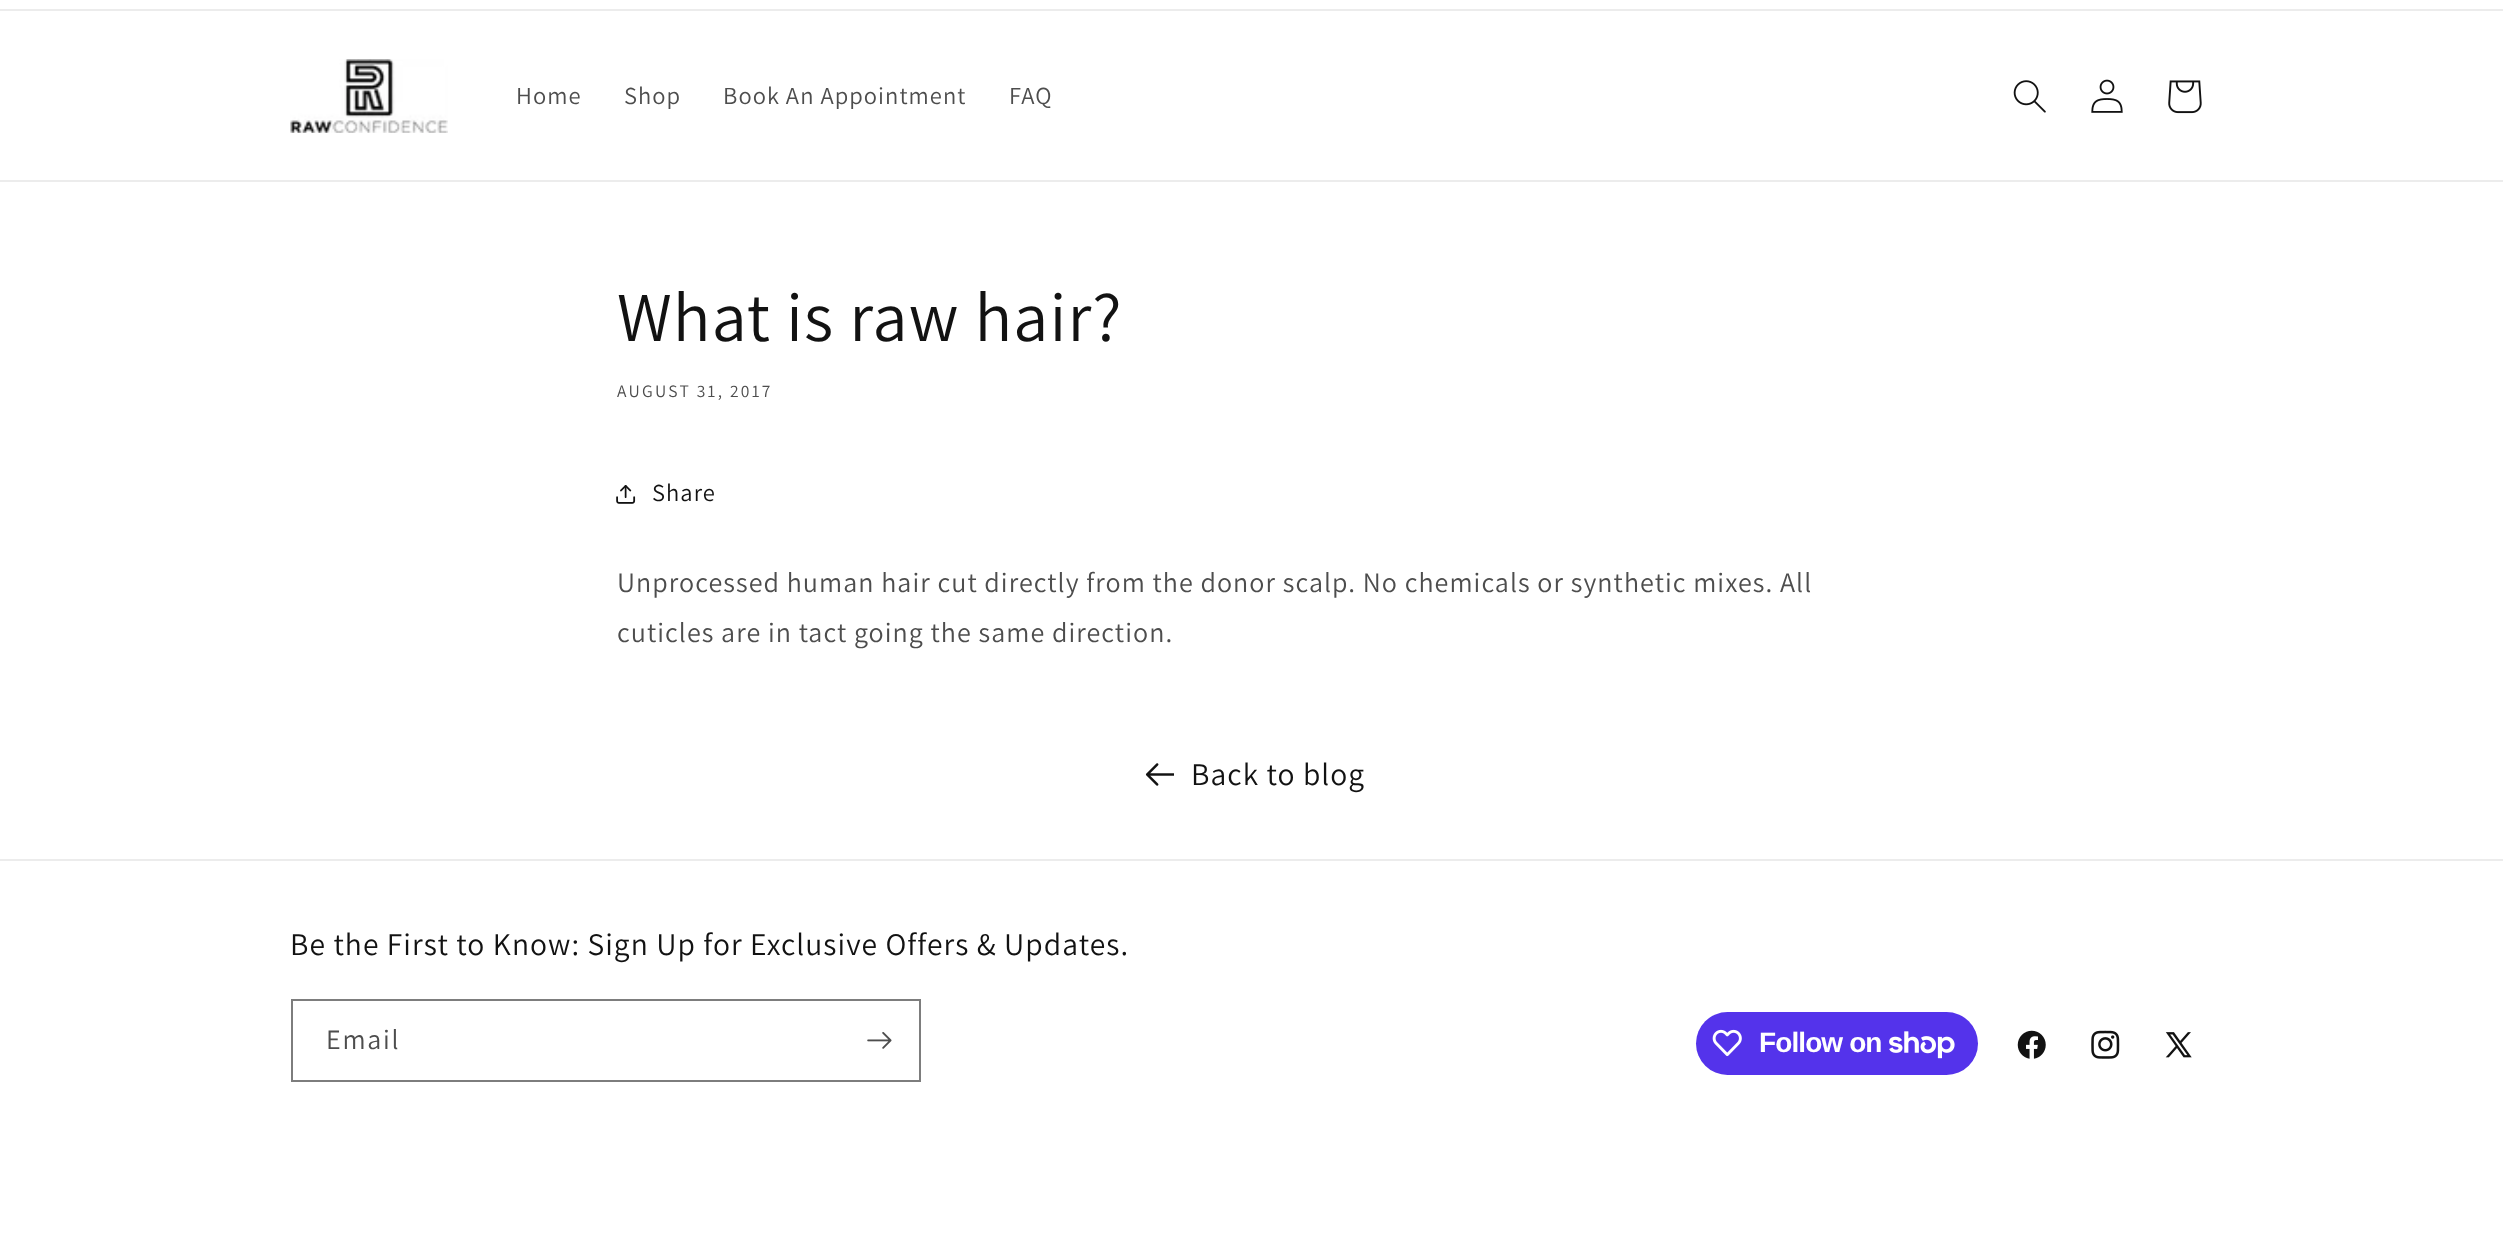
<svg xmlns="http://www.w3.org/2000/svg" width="2503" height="1248">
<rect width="100%" height="100%" fill="#fff"/>
<rect y="9" width="2503" height="2" fill="#ececec"/>
<rect y="180" width="2503" height="2" fill="#ececec"/>
<image x="290" y="59" width="158" height="74" href="media/1.png"/>
<text x="516" y="104" style="font-family:Assistant;font-size:24.5px;font-weight:200;letter-spacing:1.05px;fill:#4d4d4d">Home</text>
<text x="624" y="104" style="font-family:Assistant;font-size:24.5px;font-weight:200;letter-spacing:1.05px;fill:#4d4d4d">Shop</text>
<text x="723" y="104" style="font-family:Assistant;font-size:24.5px;font-weight:200;letter-spacing:1.05px;fill:#4d4d4d">Book An Appointment</text>
<text x="1009" y="104" style="font-family:Assistant;font-size:24.5px;font-weight:200;letter-spacing:1.05px;fill:#4d4d4d">FAQ</text>
<image x="2013" y="80" width="33" height="33" href="media/2.png"/>
<image x="2091" y="79" width="32" height="34" href="media/3.png"/>
<image x="2168" y="80" width="34" height="34" href="media/4.png"/>
<text x="617" y="341" style="font-family:Assistant;font-size:70px;font-weight:200;letter-spacing:1.05px;fill:#121212">What is raw hair?</text>
<text x="617" y="397" style="font-family:Assistant;font-size:17.5px;font-weight:200;letter-spacing:2.25px;fill:#4d4d4d">AUGUST 31, 2017</text>
<image x="616" y="485" width="20" height="19" href="media/5.png"/>
<text x="652" y="501" style="font-family:Assistant;font-size:24.5px;font-weight:200;letter-spacing:1.05px;fill:#121212">Share</text>
<text x="617" y="592" style="font-family:Assistant;font-size:28px;font-weight:200;letter-spacing:1.05px;fill:#4d4d4d">Unprocessed human hair cut directly from the donor scalp. No chemicals or synthetic mixes. All</text>
<text x="617" y="642" style="font-family:Assistant;font-size:28px;font-weight:200;letter-spacing:1.05px;fill:#4d4d4d">cuticles are in tact going the same direction.</text>
<image x="1145" y="763" width="29" height="23" href="media/6.png"/>
<text x="1191" y="785" style="font-family:Assistant;font-size:31.5px;font-weight:200;letter-spacing:1.05px;fill:#121212">Back to blog</text>
<rect y="859" width="2503" height="2" fill="#ececec"/>
<text x="290" y="955" style="font-family:Assistant;font-size:31.5px;font-weight:200;letter-spacing:1.05px;fill:#121212">Be the First to Know: Sign Up for Exclusive Offers &amp; Updates.</text>
<rect x="292" y="1000" width="628" height="81" fill="none" stroke="#7d7d7d" stroke-width="2"/>
<text x="326" y="1049" style="font-family:Assistant;font-size:28px;font-weight:200;letter-spacing:1.75px;fill:#4d4d4d">Email</text>
<image x="867" y="1032" width="25" height="17" href="media/7.png"/>
<rect x="1696" y="1012" width="282" height="63" rx="31.5" fill="#5433eb"/>
<image x="1712" y="1029" width="30" height="28" href="media/8.png"/>
<text x="1759" y="1052" style="font-family:Liberation Sans;font-size:28px;font-weight:bold;letter-spacing:-0.9px;fill:#fff">Follow on</text>
<image x="1889" y="1031" width="66" height="28" href="media/9.png"/>
<image x="2017" y="1030" width="29" height="29" href="media/10.png"/>
<image x="2091" y="1030" width="29" height="29" href="media/11.png"/>
<image x="2165" y="1032" width="27" height="26" href="media/12.png"/>
</svg>
